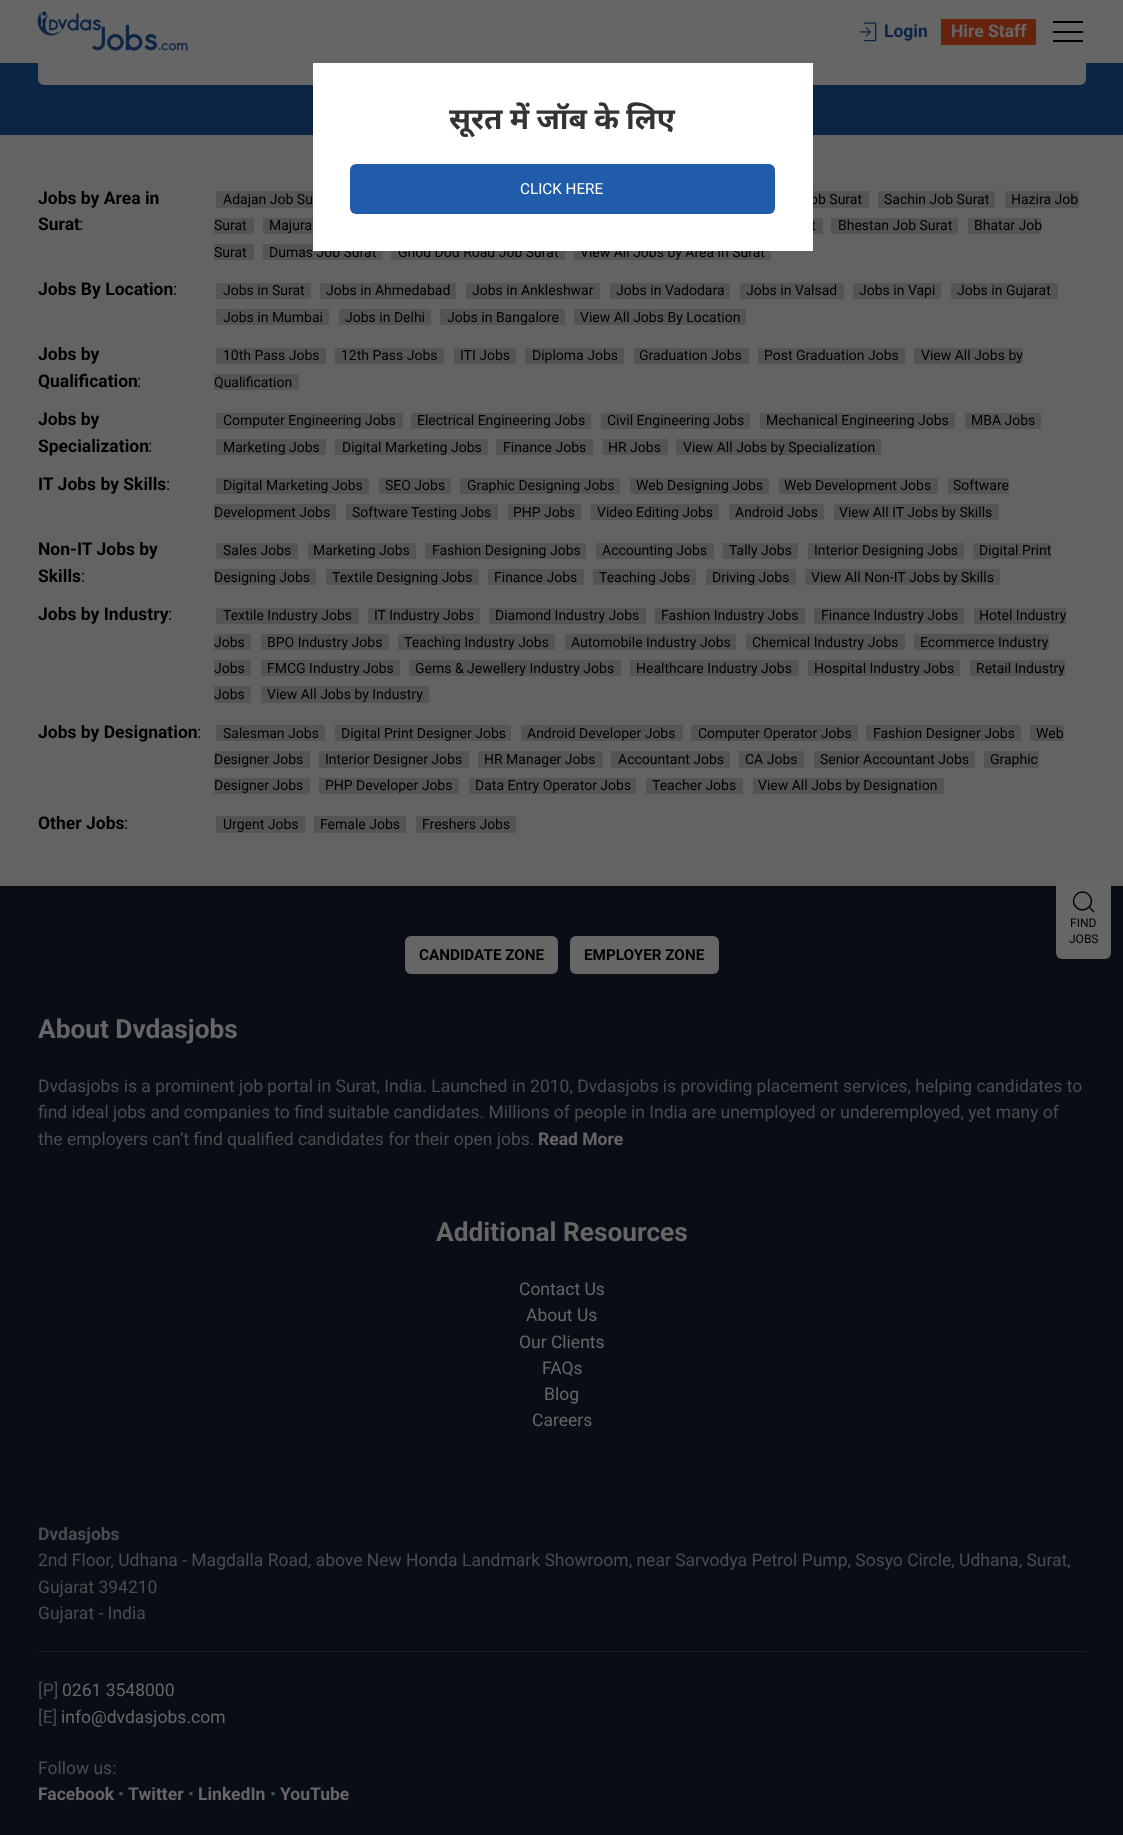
<svg xmlns="http://www.w3.org/2000/svg" width="1123" height="1835">
<rect width="100%" height="100%" fill="#636363"/>
<rect y="63" width="1123" height="72" fill="#0d2544"/>
<rect x="38" y="-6" width="1048" height="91" rx="6" fill="#666"/>
<rect width="1123" height="63" fill="#666"/>
<image x="37" y="11" width="151" height="40" href="media/1.png"/>
<image x="860" y="22" width="17" height="20" href="media/2.png"/>
<text x="884" y="37" style="font-family:Roboto;font-size:17.5px;font-weight:bold;fill:#0d2544">Login</text>
<rect x="941" y="19" width="95" height="26" fill="#66230e"/>
<text x="951" y="37" style="font-family:Roboto;font-size:17.5px;font-weight:bold;fill:#666">Hire Staff</text>
<rect x="1053" y="21" width="30" height="2" fill="#000"/>
<rect x="1053" y="31" width="30" height="2" fill="#000"/>
<rect x="1053" y="40" width="30" height="2" fill="#000"/>
<text x="38" y="204" style="font-family:Roboto;font-size:17.5px;font-weight:bold;fill:#000">Jobs by Area in</text>
<text x="38" y="230" style="font-family:Roboto;font-size:17.5px;font-weight:bold;fill:#000">Surat</text>
<text x="79" y="230" style="font-family:Roboto;font-size:17.5px;fill:#000">:</text>
<rect x="216" y="191" width="97" height="17" fill="#545454"/>
<text x="223" y="204" style="font-family:Roboto;font-size:14px;fill:#000">Adajan Job Su</text>
<rect x="813" y="191" width="56" height="17" fill="#545454"/>
<text x="810" y="204" style="font-family:Roboto;font-size:14px;fill:#000">ob Surat</text>
<rect x="878" y="191" width="117" height="17" fill="#545454"/>
<text x="884" y="204" style="font-family:Roboto;font-size:14px;fill:#000">Sachin Job Surat</text>
<rect x="1005" y="191" width="74" height="17" fill="#545454"/>
<text x="1011" y="204" style="font-family:Roboto;font-size:14px;fill:#000">Hazira Job</text>
<rect x="214" y="218" width="40" height="16" fill="#545454"/>
<text x="214" y="230" style="font-family:Roboto;font-size:14px;fill:#000">Surat</text>
<rect x="263" y="218" width="50" height="16" fill="#545454"/>
<text x="269" y="230" style="font-family:Roboto;font-size:14px;fill:#000">Majura</text>
<rect x="813" y="218" width="10" height="16" fill="#545454"/>
<text x="811" y="230" style="font-family:Roboto;font-size:14px;fill:#000">t</text>
<rect x="831" y="218" width="127" height="16" fill="#545454"/>
<text x="838" y="230" style="font-family:Roboto;font-size:14px;fill:#000">Bhestan Job Surat</text>
<rect x="968" y="218" width="73" height="16" fill="#545454"/>
<text x="974" y="230" style="font-family:Roboto;font-size:14px;fill:#000">Bhatar Job</text>
<rect x="214" y="244" width="40" height="16" fill="#545454"/>
<text x="214" y="257" style="font-family:Roboto;font-size:14px;fill:#000">Surat</text>
<rect x="263" y="244" width="120" height="16" fill="#545454"/>
<text x="269" y="257" style="font-family:Roboto;font-size:14px;fill:#000">Dumas Job Surat</text>
<rect x="391" y="251" width="174" height="9" fill="#545454"/>
<text x="398" y="257" style="font-family:Roboto;font-size:14px;fill:#000">Ghod Dod Road Job Surat</text>
<rect x="574" y="251" width="197" height="9" fill="#545454"/>
<text x="580" y="257" style="font-family:Roboto;font-size:14px;fill:#000">View All Jobs by Area in Surat</text>
<text x="38" y="295" style="font-family:Roboto;font-size:17.5px;font-weight:bold;fill:#000">Jobs By Location</text>
<text x="173" y="295" style="font-family:Roboto;font-size:17.5px;fill:#000">:</text>
<rect x="216" y="283" width="95" height="16" fill="#545454"/>
<text x="223" y="295" style="font-family:Roboto;font-size:14px;fill:#000">Jobs in Surat</text>
<rect x="320" y="283" width="136" height="16" fill="#545454"/>
<text x="326" y="295" style="font-family:Roboto;font-size:14px;fill:#000">Jobs in Ahmedabad</text>
<rect x="466" y="283" width="134" height="16" fill="#545454"/>
<text x="472" y="295" style="font-family:Roboto;font-size:14px;fill:#000">Jobs in Ankleshwar</text>
<rect x="610" y="283" width="120" height="16" fill="#545454"/>
<text x="616" y="295" style="font-family:Roboto;font-size:14px;fill:#000">Jobs in Vadodara</text>
<rect x="740" y="283" width="104" height="16" fill="#545454"/>
<text x="746" y="295" style="font-family:Roboto;font-size:14px;fill:#000">Jobs in Valsad</text>
<rect x="853" y="283" width="88" height="16" fill="#545454"/>
<text x="859" y="295" style="font-family:Roboto;font-size:14px;fill:#000">Jobs in Vapi</text>
<rect x="951" y="283" width="107" height="16" fill="#545454"/>
<text x="957" y="295" style="font-family:Roboto;font-size:14px;fill:#000">Jobs in Gujarat</text>
<rect x="216" y="309" width="113" height="16" fill="#545454"/>
<text x="223" y="322" style="font-family:Roboto;font-size:14px;fill:#000">Jobs in Mumbai</text>
<rect x="339" y="309" width="92" height="16" fill="#545454"/>
<text x="345" y="322" style="font-family:Roboto;font-size:14px;fill:#000">Jobs in Delhi</text>
<rect x="440" y="309" width="125" height="16" fill="#545454"/>
<text x="447" y="322" style="font-family:Roboto;font-size:14px;fill:#000">Jobs in Bangalore</text>
<rect x="574" y="309" width="172" height="16" fill="#545454"/>
<text x="580" y="322" style="font-family:Roboto;font-size:14px;fill:#000">View All Jobs By Location</text>
<text x="38" y="360" style="font-family:Roboto;font-size:17.5px;font-weight:bold;fill:#000">Jobs by</text>
<text x="38" y="387" style="font-family:Roboto;font-size:17.5px;font-weight:bold;fill:#000">Qualification</text>
<text x="137" y="387" style="font-family:Roboto;font-size:17.5px;fill:#000">:</text>
<rect x="216" y="348" width="110" height="16" fill="#545454"/>
<text x="223" y="360" style="font-family:Roboto;font-size:14px;fill:#000">10th Pass Jobs</text>
<rect x="335" y="348" width="109" height="16" fill="#545454"/>
<text x="341" y="360" style="font-family:Roboto;font-size:14px;fill:#000">12th Pass Jobs</text>
<rect x="454" y="348" width="62" height="16" fill="#545454"/>
<text x="460" y="360" style="font-family:Roboto;font-size:14px;fill:#000">ITI Jobs</text>
<rect x="525" y="348" width="99" height="16" fill="#545454"/>
<text x="532" y="360" style="font-family:Roboto;font-size:14px;fill:#000">Diploma Jobs</text>
<rect x="634" y="348" width="115" height="16" fill="#545454"/>
<text x="639" y="360" style="font-family:Roboto;font-size:14px;fill:#000">Graduation Jobs</text>
<rect x="758" y="348" width="147" height="16" fill="#545454"/>
<text x="764" y="360" style="font-family:Roboto;font-size:14px;fill:#000">Post Graduation Jobs</text>
<rect x="914" y="348" width="109" height="16" fill="#545454"/>
<text x="921" y="360" style="font-family:Roboto;font-size:14px;fill:#000">View All Jobs by</text>
<rect x="214" y="374" width="85" height="16" fill="#545454"/>
<text x="214" y="387" style="font-family:Roboto;font-size:14px;fill:#000">Qualification</text>
<text x="38" y="425" style="font-family:Roboto;font-size:17.5px;font-weight:bold;fill:#000">Jobs by</text>
<text x="38" y="452" style="font-family:Roboto;font-size:17.5px;font-weight:bold;fill:#000">Specialization</text>
<text x="148" y="452" style="font-family:Roboto;font-size:17.5px;fill:#000">:</text>
<rect x="216" y="413" width="187" height="16" fill="#545454"/>
<text x="223" y="425" style="font-family:Roboto;font-size:14px;fill:#000">Computer Engineering Jobs</text>
<rect x="411" y="413" width="180" height="16" fill="#545454"/>
<text x="417" y="425" style="font-family:Roboto;font-size:14px;fill:#000">Electrical Engineering Jobs</text>
<rect x="601" y="413" width="149" height="16" fill="#545454"/>
<text x="607" y="425" style="font-family:Roboto;font-size:14px;fill:#000">Civil Engineering Jobs</text>
<rect x="760" y="413" width="195" height="16" fill="#545454"/>
<text x="766" y="425" style="font-family:Roboto;font-size:14px;fill:#000">Mechanical Engineering Jobs</text>
<rect x="965" y="413" width="76" height="16" fill="#545454"/>
<text x="971" y="425" style="font-family:Roboto;font-size:14px;fill:#000">MBA Jobs</text>
<rect x="216" y="439" width="110" height="16" fill="#545454"/>
<text x="223" y="452" style="font-family:Roboto;font-size:14px;fill:#000">Marketing Jobs</text>
<rect x="335" y="439" width="153" height="16" fill="#545454"/>
<text x="342" y="452" style="font-family:Roboto;font-size:14px;fill:#000">Digital Marketing Jobs</text>
<rect x="496" y="439" width="97" height="16" fill="#545454"/>
<text x="503" y="452" style="font-family:Roboto;font-size:14px;fill:#000">Finance Jobs</text>
<rect x="603" y="439" width="65" height="16" fill="#545454"/>
<text x="608" y="452" style="font-family:Roboto;font-size:14px;fill:#000">HR Jobs</text>
<rect x="676" y="439" width="205" height="16" fill="#545454"/>
<text x="683" y="452" style="font-family:Roboto;font-size:14px;fill:#000">View All Jobs by Specialization</text>
<text x="38" y="490" style="font-family:Roboto;font-size:17.5px;font-weight:bold;fill:#000">IT Jobs by Skills</text>
<text x="166" y="490" style="font-family:Roboto;font-size:17.5px;fill:#000">:</text>
<rect x="216" y="478" width="153" height="16" fill="#545454"/>
<text x="223" y="490" style="font-family:Roboto;font-size:14px;fill:#000">Digital Marketing Jobs</text>
<rect x="379" y="478" width="72" height="16" fill="#545454"/>
<text x="385" y="490" style="font-family:Roboto;font-size:14px;fill:#000">SEO Jobs</text>
<rect x="460" y="478" width="160" height="16" fill="#545454"/>
<text x="467" y="490" style="font-family:Roboto;font-size:14px;fill:#000">Graphic Designing Jobs</text>
<rect x="630" y="478" width="139" height="16" fill="#545454"/>
<text x="636" y="490" style="font-family:Roboto;font-size:14px;fill:#000">Web Designing Jobs</text>
<rect x="779" y="478" width="159" height="16" fill="#545454"/>
<text x="784" y="490" style="font-family:Roboto;font-size:14px;fill:#000">Web Development Jobs</text>
<rect x="948" y="478" width="61" height="16" fill="#545454"/>
<text x="953" y="490" style="font-family:Roboto;font-size:14px;fill:#000">Software</text>
<rect x="214" y="504" width="122" height="16" fill="#545454"/>
<text x="214" y="517" style="font-family:Roboto;font-size:14px;fill:#000">Development Jobs</text>
<rect x="346" y="504" width="152" height="16" fill="#545454"/>
<text x="352" y="517" style="font-family:Roboto;font-size:14px;fill:#000">Software Testing Jobs</text>
<rect x="508" y="504" width="73" height="16" fill="#545454"/>
<text x="513" y="517" style="font-family:Roboto;font-size:14px;fill:#000">PHP Jobs</text>
<rect x="591" y="504" width="128" height="16" fill="#545454"/>
<text x="597" y="517" style="font-family:Roboto;font-size:14px;fill:#000">Video Editing Jobs</text>
<rect x="729" y="504" width="95" height="16" fill="#545454"/>
<text x="735" y="517" style="font-family:Roboto;font-size:14px;fill:#000">Android Jobs</text>
<rect x="834" y="504" width="165" height="16" fill="#545454"/>
<text x="839" y="517" style="font-family:Roboto;font-size:14px;fill:#000">View All IT Jobs by Skills</text>
<text x="38" y="555" style="font-family:Roboto;font-size:17.5px;font-weight:bold;fill:#000">Non-IT Jobs by</text>
<text x="38" y="582" style="font-family:Roboto;font-size:17.5px;font-weight:bold;fill:#000">Skills</text>
<text x="81" y="582" style="font-family:Roboto;font-size:17.5px;fill:#000">:</text>
<rect x="216" y="543" width="82" height="16" fill="#545454"/>
<text x="223" y="555" style="font-family:Roboto;font-size:14px;fill:#000">Sales Jobs</text>
<rect x="308" y="543" width="108" height="16" fill="#545454"/>
<text x="313" y="555" style="font-family:Roboto;font-size:14px;fill:#000">Marketing Jobs</text>
<rect x="425" y="543" width="161" height="16" fill="#545454"/>
<text x="432" y="555" style="font-family:Roboto;font-size:14px;fill:#000">Fashion Designing Jobs</text>
<rect x="596" y="543" width="118" height="16" fill="#545454"/>
<text x="602" y="555" style="font-family:Roboto;font-size:14px;fill:#000">Accounting Jobs</text>
<rect x="723" y="543" width="75" height="16" fill="#545454"/>
<text x="729" y="555" style="font-family:Roboto;font-size:14px;fill:#000">Tally Jobs</text>
<rect x="808" y="543" width="156" height="16" fill="#545454"/>
<text x="814" y="555" style="font-family:Roboto;font-size:14px;fill:#000">Interior Designing Jobs</text>
<rect x="973" y="543" width="78" height="16" fill="#545454"/>
<text x="979" y="555" style="font-family:Roboto;font-size:14px;fill:#000">Digital Print</text>
<rect x="214" y="569" width="102" height="16" fill="#545454"/>
<text x="214" y="582" style="font-family:Roboto;font-size:14px;fill:#000">Designing Jobs</text>
<rect x="326" y="569" width="153" height="16" fill="#545454"/>
<text x="332" y="582" style="font-family:Roboto;font-size:14px;fill:#000">Textile Designing Jobs</text>
<rect x="488" y="569" width="96" height="16" fill="#545454"/>
<text x="494" y="582" style="font-family:Roboto;font-size:14px;fill:#000">Finance Jobs</text>
<rect x="593" y="569" width="103" height="16" fill="#545454"/>
<text x="599" y="582" style="font-family:Roboto;font-size:14px;fill:#000">Teaching Jobs</text>
<rect x="706" y="569" width="90" height="16" fill="#545454"/>
<text x="712" y="582" style="font-family:Roboto;font-size:14px;fill:#000">Driving Jobs</text>
<rect x="805" y="569" width="195" height="16" fill="#545454"/>
<text x="811" y="582" style="font-family:Roboto;font-size:14px;fill:#000">View All Non-IT Jobs by Skills</text>
<text x="38" y="620" style="font-family:Roboto;font-size:17.5px;font-weight:bold;fill:#000">Jobs by Industry</text>
<text x="168" y="620" style="font-family:Roboto;font-size:17.5px;fill:#000">:</text>
<rect x="216" y="608" width="143" height="16" fill="#545454"/>
<text x="223" y="620" style="font-family:Roboto;font-size:14px;fill:#000">Textile Industry Jobs</text>
<rect x="368" y="608" width="112" height="16" fill="#545454"/>
<text x="374" y="620" style="font-family:Roboto;font-size:14px;fill:#000">IT Industry Jobs</text>
<rect x="489" y="608" width="157" height="16" fill="#545454"/>
<text x="495" y="620" style="font-family:Roboto;font-size:14px;fill:#000">Diamond Industry Jobs</text>
<rect x="655" y="608" width="150" height="16" fill="#545454"/>
<text x="661" y="620" style="font-family:Roboto;font-size:14px;fill:#000">Fashion Industry Jobs</text>
<rect x="814" y="608" width="150" height="16" fill="#545454"/>
<text x="821" y="620" style="font-family:Roboto;font-size:14px;fill:#000">Finance Industry Jobs</text>
<rect x="974" y="608" width="92" height="16" fill="#545454"/>
<text x="979" y="620" style="font-family:Roboto;font-size:14px;fill:#000">Hotel Industry</text>
<rect x="214" y="634" width="37" height="16" fill="#545454"/>
<text x="214" y="647" style="font-family:Roboto;font-size:14px;fill:#000">Jobs</text>
<rect x="261" y="634" width="128" height="16" fill="#545454"/>
<text x="267" y="647" style="font-family:Roboto;font-size:14px;fill:#000">BPO Industry Jobs</text>
<rect x="398" y="634" width="157" height="16" fill="#545454"/>
<text x="404" y="647" style="font-family:Roboto;font-size:14px;fill:#000">Teaching Industry Jobs</text>
<rect x="565" y="634" width="171" height="16" fill="#545454"/>
<text x="571" y="647" style="font-family:Roboto;font-size:14px;fill:#000">Automobile Industry Jobs</text>
<rect x="746" y="634" width="159" height="16" fill="#545454"/>
<text x="752" y="647" style="font-family:Roboto;font-size:14px;fill:#000">Chemical Industry Jobs</text>
<rect x="914" y="634" width="135" height="16" fill="#545454"/>
<text x="920" y="647" style="font-family:Roboto;font-size:14px;fill:#000">Ecommerce Industry</text>
<rect x="214" y="660" width="37" height="16" fill="#545454"/>
<text x="214" y="673" style="font-family:Roboto;font-size:14px;fill:#000">Jobs</text>
<rect x="261" y="660" width="139" height="16" fill="#545454"/>
<text x="267" y="673" style="font-family:Roboto;font-size:14px;fill:#000">FMCG Industry Jobs</text>
<rect x="409" y="660" width="212" height="16" fill="#545454"/>
<text x="415" y="673" style="font-family:Roboto;font-size:14px;fill:#000">Gems &amp; Jewellery Industry Jobs</text>
<rect x="630" y="660" width="169" height="16" fill="#545454"/>
<text x="636" y="673" style="font-family:Roboto;font-size:14px;fill:#000">Healthcare Industry Jobs</text>
<rect x="808" y="660" width="152" height="16" fill="#545454"/>
<text x="814" y="673" style="font-family:Roboto;font-size:14px;fill:#000">Hospital Industry Jobs</text>
<rect x="970" y="660" width="95" height="16" fill="#545454"/>
<text x="976" y="673" style="font-family:Roboto;font-size:14px;fill:#000">Retail Industry</text>
<rect x="214" y="686" width="37" height="17" fill="#545454"/>
<text x="214" y="699" style="font-family:Roboto;font-size:14px;fill:#000">Jobs</text>
<rect x="261" y="686" width="168" height="17" fill="#545454"/>
<text x="267" y="699" style="font-family:Roboto;font-size:14px;fill:#000">View All Jobs by Industry</text>
<text x="38" y="738" style="font-family:Roboto;font-size:17.5px;font-weight:bold;fill:#000">Jobs by Designation</text>
<text x="197" y="738" style="font-family:Roboto;font-size:17.5px;fill:#000">:</text>
<rect x="216" y="725" width="109" height="16" fill="#545454"/>
<text x="223" y="738" style="font-family:Roboto;font-size:14px;fill:#000">Salesman Jobs</text>
<rect x="335" y="725" width="176" height="16" fill="#545454"/>
<text x="341" y="738" style="font-family:Roboto;font-size:14px;fill:#000">Digital Print Designer Jobs</text>
<rect x="521" y="725" width="162" height="16" fill="#545454"/>
<text x="527" y="738" style="font-family:Roboto;font-size:14px;fill:#000">Android Developer Jobs</text>
<rect x="691" y="725" width="167" height="16" fill="#545454"/>
<text x="698" y="738" style="font-family:Roboto;font-size:14px;fill:#000">Computer Operator Jobs</text>
<rect x="866" y="725" width="155" height="16" fill="#545454"/>
<text x="873" y="738" style="font-family:Roboto;font-size:14px;fill:#000">Fashion Designer Jobs</text>
<rect x="1030" y="725" width="34" height="16" fill="#545454"/>
<text x="1036" y="738" style="font-family:Roboto;font-size:14px;fill:#000">Web</text>
<rect x="214" y="751" width="96" height="17" fill="#545454"/>
<text x="214" y="764" style="font-family:Roboto;font-size:14px;fill:#000">Designer Jobs</text>
<rect x="319" y="751" width="150" height="17" fill="#545454"/>
<text x="325" y="764" style="font-family:Roboto;font-size:14px;fill:#000">Interior Designer Jobs</text>
<rect x="478" y="751" width="125" height="17" fill="#545454"/>
<text x="484" y="764" style="font-family:Roboto;font-size:14px;fill:#000">HR Manager Jobs</text>
<rect x="611" y="751" width="119" height="17" fill="#545454"/>
<text x="618" y="764" style="font-family:Roboto;font-size:14px;fill:#000">Accountant Jobs</text>
<rect x="739" y="751" width="65" height="17" fill="#545454"/>
<text x="745" y="764" style="font-family:Roboto;font-size:14px;fill:#000">CA Jobs</text>
<rect x="814" y="751" width="161" height="17" fill="#545454"/>
<text x="820" y="764" style="font-family:Roboto;font-size:14px;fill:#000">Senior Accountant Jobs</text>
<rect x="984" y="751" width="55" height="17" fill="#545454"/>
<text x="990" y="764" style="font-family:Roboto;font-size:14px;fill:#000">Graphic</text>
<rect x="214" y="778" width="96" height="16" fill="#545454"/>
<text x="214" y="790" style="font-family:Roboto;font-size:14px;fill:#000">Designer Jobs</text>
<rect x="319" y="778" width="140" height="16" fill="#545454"/>
<text x="325" y="790" style="font-family:Roboto;font-size:14px;fill:#000">PHP Developer Jobs</text>
<rect x="469" y="778" width="167" height="16" fill="#545454"/>
<text x="475" y="790" style="font-family:Roboto;font-size:14px;fill:#000">Data Entry Operator Jobs</text>
<rect x="646" y="778" width="97" height="16" fill="#545454"/>
<text x="652" y="790" style="font-family:Roboto;font-size:14px;fill:#000">Teacher Jobs</text>
<rect x="753" y="778" width="191" height="16" fill="#545454"/>
<text x="758" y="790" style="font-family:Roboto;font-size:14px;fill:#000">View All Jobs by Designation</text>
<text x="38" y="829" style="font-family:Roboto;font-size:17.5px;font-weight:bold;fill:#000">Other Jobs</text>
<text x="124" y="829" style="font-family:Roboto;font-size:17.5px;fill:#000">:</text>
<rect x="216" y="816" width="89" height="17" fill="#545454"/>
<text x="223" y="829" style="font-family:Roboto;font-size:14px;fill:#000">Urgent Jobs</text>
<rect x="314" y="816" width="92" height="17" fill="#545454"/>
<text x="320" y="829" style="font-family:Roboto;font-size:14px;fill:#000">Female Jobs</text>
<rect x="416" y="816" width="100" height="17" fill="#545454"/>
<text x="422" y="829" style="font-family:Roboto;font-size:14px;fill:#000">Freshers Jobs</text>
<rect y="886" width="1123" height="949" fill="#090e16"/>
<rect x="1056" y="878" width="55" height="81" rx="6" fill="#666"/>
<circle cx="1082.5" cy="901" r="9" fill="none" stroke="#000" stroke-width="1.4"/>
<path d="M1089 907l5 5z" fill="none" stroke="#000" stroke-width="1.4"/>
<text x="1070" y="927" style="font-family:Roboto;font-size:12px;fill:#000">FIND</text>
<text x="1069" y="943" style="font-family:Roboto;font-size:12px;fill:#000">JOBS</text>
<rect x="405" y="936" width="153" height="38" rx="6" fill="#666"/>
<text x="419" y="960" style="font-family:Roboto;font-size:15.25px;font-weight:bold;fill:#000">CANDIDATE ZONE</text>
<rect x="570" y="936" width="149" height="38" rx="6" fill="#666"/>
<text x="584" y="960" style="font-family:Roboto;font-size:15.25px;font-weight:bold;fill:#000">EMPLOYER ZONE</text>
<text x="38" y="1038" style="font-family:Roboto;font-size:26.25px;font-weight:bold;fill:#666">About Dvdasjobs</text>
<text x="38" y="1092" style="font-family:Roboto;font-size:17.5px;fill:#4a4c4e">Dvdasjobs is a prominent job portal in Surat, India. Launched in 2010, Dvdasjobs is providing placement services, helping candidates to</text>
<text x="38" y="1118" style="font-family:Roboto;font-size:17.5px;fill:#4a4c4e">find ideal jobs and companies to find suitable candidates. Millions of people in India are unemployed or underemployed, yet many of</text>
<text x="38" y="1145" style="font-family:Roboto;font-size:17.5px;fill:#4a4c4e">the employers can’t find qualified candidates for their open jobs.</text>
<text x="538" y="1145" style="font-family:Roboto;font-size:17.5px;font-weight:bold;fill:#666">Read More</text>
<text x="436" y="1241" style="font-family:Roboto;font-size:26.25px;font-weight:bold;fill:#666">Additional Resources</text>
<text x="519" y="1295" style="font-family:Roboto;font-size:17.5px;fill:#666">Contact Us</text>
<text x="526" y="1321" style="font-family:Roboto;font-size:17.5px;fill:#666">About Us</text>
<text x="519" y="1348" style="font-family:Roboto;font-size:17.5px;fill:#666">Our Clients</text>
<text x="542" y="1374" style="font-family:Roboto;font-size:17.5px;fill:#666">FAQs</text>
<text x="544" y="1400" style="font-family:Roboto;font-size:17.5px;fill:#666">Blog</text>
<text x="532" y="1426" style="font-family:Roboto;font-size:17.5px;fill:#666">Careers</text>
<text x="38" y="1540" style="font-family:Roboto;font-size:17.5px;font-weight:bold;fill:#4a4c4e">Dvdasjobs</text>
<text x="38" y="1566" style="font-family:Roboto;font-size:17.5px;fill:#4a4c4e">2nd Floor, Udhana - Magdalla Road, above New Honda Landmark Showroom, near Sarvodya Petrol Pump, Sosyo Circle, Udhana, Surat,</text>
<text x="38" y="1593" style="font-family:Roboto;font-size:17.5px;fill:#4a4c4e">Gujarat 394210</text>
<text x="38" y="1619" style="font-family:Roboto;font-size:17.5px;fill:#4a4c4e">Gujarat - India</text>
<rect x="38" y="1651" width="1048" height="1" fill="#1c2026"/>
<text x="38" y="1696" style="font-family:Roboto;font-size:17.5px;fill:#4a4c4e">[P]</text>
<text x="62" y="1696" style="font-family:Roboto;font-size:17.5px;fill:#666">0261 3548000</text>
<text x="38" y="1723" style="font-family:Roboto;font-size:17.5px;fill:#4a4c4e">[E]</text>
<text x="61" y="1723" style="font-family:Roboto;font-size:17.5px;fill:#666">info@dvdasjobs.com</text>
<text x="38" y="1774" style="font-family:Roboto;font-size:17.5px;fill:#4a4c4e">Follow us:</text>
<text x="38" y="1800" style="font-family:Roboto;font-size:17.5px;font-weight:bold;fill:#666">Facebook</text>
<text x="118" y="1800" style="font-family:Roboto;font-size:17.5px;fill:#4a4c4e">•</text>
<text x="128" y="1800" style="font-family:Roboto;font-size:17.5px;font-weight:bold;fill:#666">Twitter</text>
<text x="188" y="1800" style="font-family:Roboto;font-size:17.5px;fill:#4a4c4e">•</text>
<text x="198" y="1800" style="font-family:Roboto;font-size:17.5px;font-weight:bold;fill:#666">LinkedIn</text>
<text x="270" y="1800" style="font-family:Roboto;font-size:17.5px;fill:#4a4c4e">•</text>
<text x="280" y="1800" style="font-family:Roboto;font-size:17.5px;font-weight:bold;fill:#666">YouTube</text>
<rect x="313" y="63" width="500" height="188" fill="#fff"/>
<text x="449" y="129" word-spacing="-0.5" style="font-family:Noto Sans;font-size:29.75px;font-weight:bold;fill:#333">सूरत में जॉब के लिए</text>
<rect x="350" y="164" width="425" height="50" rx="6" fill="#205caa"/>
<text x="520" y="194" style="font-family:Roboto;font-size:15.25px;fill:#fff">CLICK HERE</text>
</svg>
